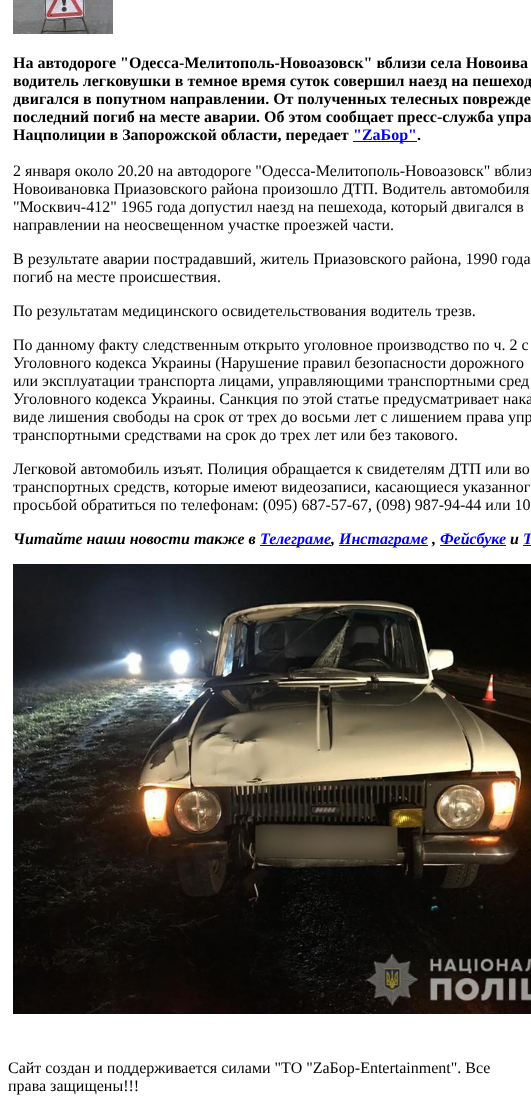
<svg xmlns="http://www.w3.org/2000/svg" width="531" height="1111">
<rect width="100%" height="100%" fill="#fff"/>
<image x="13" y="0" width="100" height="34" href="media/1.png"/>
<text x="13" y="68" style="font-family:Liberation Serif;font-size:16px;font-weight:bold;fill:#000">На автодороге "Одесса-Мелитополь-Новоазовск" вблизи села Новоива</text>
<text x="13" y="86" style="font-family:Liberation Serif;font-size:16px;font-weight:bold;fill:#000">водитель легковушки в темное время суток совершил наезд на пешеход</text>
<text x="13" y="104" style="font-family:Liberation Serif;font-size:16px;font-weight:bold;fill:#000">двигался в попутном направлении. От полученных телесных поврежде</text>
<text x="13" y="122" style="font-family:Liberation Serif;font-size:16px;font-weight:bold;fill:#000">последний погиб на месте аварии. Об этом сообщает пресс-служба упра</text>
<text x="13" y="140" style="font-family:Liberation Serif;font-size:16px;font-weight:bold;fill:#000">Нацполиции в Запорожской области, передает</text>
<rect x="353" y="141" width="64" height="1" fill="#00e"/>
<text x="353" y="140" style="font-family:Liberation Serif;font-size:16px;font-weight:bold;fill:#00e">"ZаБор"</text>
<text x="417" y="140" style="font-family:Liberation Serif;font-size:16px;font-weight:bold;fill:#000">.</text>
<text x="13" y="176" style="font-family:Liberation Serif;font-size:16px;fill:#000">2 января около 20.20 на автодороге "Одесса-Мелитополь-Новоазовск" вблиз</text>
<text x="13" y="194" style="font-family:Liberation Serif;font-size:16px;fill:#000">Новоивановка Приазовского района произошло ДТП. Водитель автомобиля</text>
<text x="13" y="212" style="font-family:Liberation Serif;font-size:16px;fill:#000">"Москвич-412" 1965 года допустил наезд на пешехода, который двигался в</text>
<text x="13" y="230" style="font-family:Liberation Serif;font-size:16px;fill:#000">направлении на неосвещенном участке проезжей части.</text>
<text x="13" y="264" style="font-family:Liberation Serif;font-size:16px;fill:#000">В результате аварии пострадавший, житель Приазовского района, 1990 года</text>
<text x="13" y="282" style="font-family:Liberation Serif;font-size:16px;fill:#000">погиб на месте происшествия.</text>
<text x="13" y="316" style="font-family:Liberation Serif;font-size:16px;fill:#000">По результатам медицинского освидетельствования водитель трезв.</text>
<text x="13" y="350" style="font-family:Liberation Serif;font-size:16px;fill:#000">По данному факту следственным открыто уголовное производство по ч. 2 с</text>
<text x="13" y="368" style="font-family:Liberation Serif;font-size:16px;fill:#000">Уголовного кодекса Украины (Нарушение правил безопасности дорожного</text>
<text x="13" y="386" style="font-family:Liberation Serif;font-size:16px;fill:#000">или эксплуатации транспорта лицами, управляющими транспортными сред</text>
<text x="13" y="404" style="font-family:Liberation Serif;font-size:16px;fill:#000">Уголовного кодекса Украины. Санкция по этой статье предусматривает нака</text>
<text x="13" y="422" style="font-family:Liberation Serif;font-size:16px;fill:#000">виде лишения свободы на срок от трех до восьми лет с лишением права упр</text>
<text x="13" y="440" style="font-family:Liberation Serif;font-size:16px;fill:#000">транспортными средствами на срок до трех лет или без такового.</text>
<text x="13" y="474" style="font-family:Liberation Serif;font-size:16px;fill:#000">Легковой автомобиль изъят. Полиция обращается к свидетелям ДТП или во</text>
<text x="13" y="492" style="font-family:Liberation Serif;font-size:16px;fill:#000">транспортных средств, которые имеют видеозаписи, касающиеся указанног</text>
<text x="13" y="510" style="font-family:Liberation Serif;font-size:16px;fill:#000">просьбой обратиться по телефонам: (095) 687-57-67, (098) 987-94-44 или 10</text>
<text x="13" y="544" style="font-family:Liberation Serif;font-size:16px;font-weight:bold;font-style:italic;fill:#000">Читайте наши новости также в</text>
<rect x="260" y="545" width="71" height="1" fill="#00e"/>
<text x="260" y="544" style="font-family:Liberation Serif;font-size:16px;font-weight:bold;font-style:italic;fill:#00e">Телеграме</text>
<text x="331" y="544" style="font-family:Liberation Serif;font-size:16px;font-weight:bold;font-style:italic;fill:#000">,</text>
<rect x="339" y="545" width="89" height="1" fill="#00e"/>
<text x="339" y="544" style="font-family:Liberation Serif;font-size:16px;font-weight:bold;font-style:italic;fill:#00e">Инстаграме</text>
<text x="432" y="544" style="font-family:Liberation Serif;font-size:16px;font-weight:bold;font-style:italic;fill:#000">,</text>
<rect x="440" y="545" width="66" height="1" fill="#00e"/>
<text x="440" y="544" style="font-family:Liberation Serif;font-size:16px;font-weight:bold;font-style:italic;fill:#00e">Фейсбуке</text>
<text x="510" y="544" style="font-family:Liberation Serif;font-size:16px;font-weight:bold;font-style:italic;fill:#000">и</text>
<rect x="523" y="545" width="8" height="1" fill="#00e"/>
<text x="523" y="544" style="font-family:Liberation Serif;font-size:16px;font-weight:bold;font-style:italic;fill:#00e">Т</text>
<image x="13" y="564" width="518" height="450" href="media/2.png"/>
<text x="8" y="1073" style="font-family:Liberation Serif;font-size:16px;fill:#000">Сайт создан и поддерживается силами "ТО "ZаБор-Entertainment". Все</text>
<text x="8" y="1091" style="font-family:Liberation Serif;font-size:16px;fill:#000">права защищены!!!</text>
</svg>
